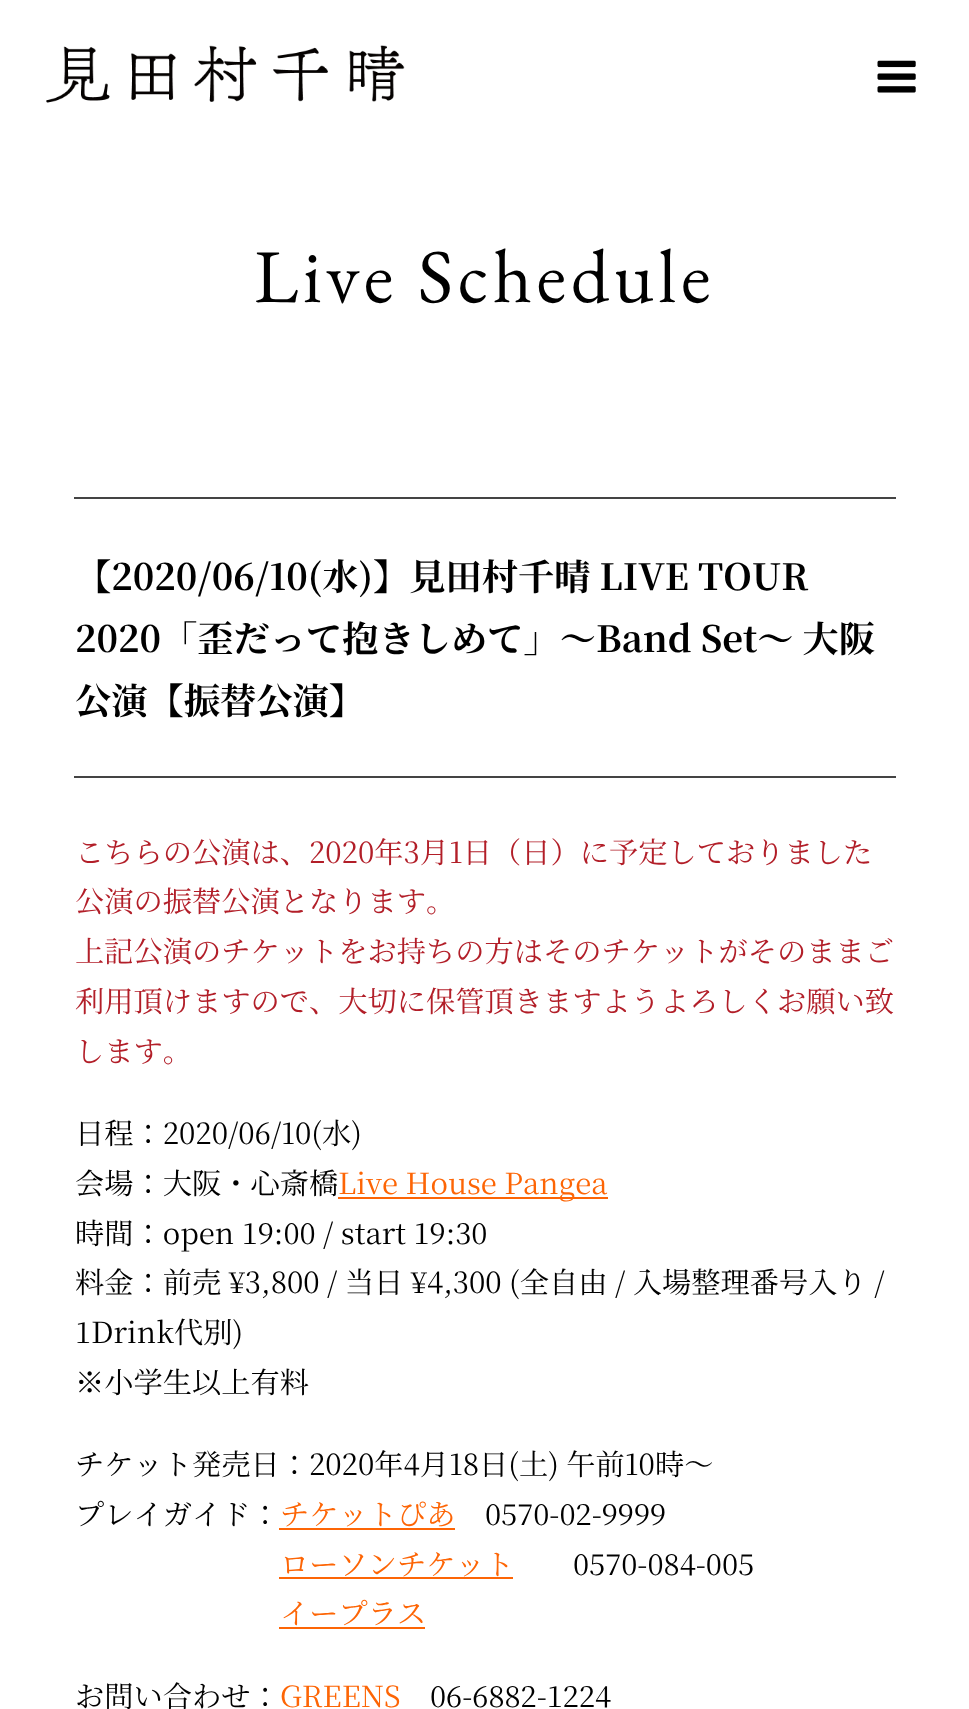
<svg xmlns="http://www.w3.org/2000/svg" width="969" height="1709">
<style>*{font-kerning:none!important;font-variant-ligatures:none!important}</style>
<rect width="100%" height="100%" fill="#fff"/>
<image x="46" y="45" width="359" height="58" href="media/1.png"/>
<image x="877" y="60" width="39" height="33" href="media/2.png"/>
<text x="254" y="302" style="font-family:EB Garamond;font-size:76px;letter-spacing:4.5px;fill:#000">Live Schedule</text>
<rect x="74" y="497" width="822" height="2" fill="#444"/>
<rect x="74" y="776" width="822" height="2" fill="#444"/>
<text x="75" y="590" style="font-family:Noto Serif JP;font-size:36.25px;font-weight:bold;fill:#000">【2020/06/10(水)】見田村千晴 LIVE TOUR</text>
<text x="75" y="652" style="font-family:Noto Serif JP;font-size:36.25px;font-weight:bold;fill:#000">2020「歪だって抱きしめて」〜Band Set〜 大阪</text>
<text x="75" y="714" style="font-family:Noto Serif JP;font-size:36.25px;font-weight:bold;fill:#000">公演【振替公演】</text>
<text x="75" y="863" style="font-family:Noto Serif JP;font-size:29.25px;fill:#b21e28">こちらの公演は、2020年3月1日（日）に予定しておりました</text>
<text x="75" y="912" style="font-family:Noto Serif JP;font-size:29.25px;fill:#b21e28">公演の振替公演となります。</text>
<text x="75" y="962" style="font-family:Noto Serif JP;font-size:29.25px;fill:#b21e28">上記公演のチケットをお持ちの方はそのチケ</text>
<text x="660" y="962" style="font-family:Noto Serif JP;font-size:29.25px;fill:#b21e28">ットがそのままご</text>
<text x="75" y="1012" style="font-family:Noto Serif JP;font-size:29.25px;fill:#b21e28">利用頂けますので、大切に保管頂きますようよろしくお願い致</text>
<text x="75" y="1062" style="font-family:Noto Serif JP;font-size:29.25px;fill:#b21e28">します。</text>
<text x="75" y="1144" style="font-family:Noto Serif JP;font-size:29.25px;fill:#000">日程：2020/06/10(水)</text>
<text x="75" y="1194" style="font-family:Noto Serif JP;font-size:29.25px;fill:#000">会場：大阪・心斎橋</text>
<rect x="338" y="1197" width="270" height="2" fill="#fd6505"/>
<text x="338" y="1194" style="font-family:Noto Serif JP;font-size:29.25px;fill:#fd6505">Live House Pangea</text>
<text x="75" y="1244" style="font-family:Noto Serif JP;font-size:29.25px;fill:#000">時間：open 19:00 / start 19:30</text>
<text x="75" y="1293" style="font-family:Noto Serif JP;font-size:29.25px;fill:#000">料金：前売 ¥3,800 / 当日 ¥4,300 (全自由 / 入場整理番号入り /</text>
<text x="75" y="1343" style="font-family:Noto Serif JP;font-size:29.25px;fill:#000">1Drink代別)</text>
<text x="75" y="1393" style="font-family:Noto Serif JP;font-size:29.25px;fill:#000">※小学生以上有料</text>
<text x="75" y="1475" style="font-family:Noto Serif JP;font-size:29.25px;fill:#000">チケット発売日：2020年4月18日(土) 午前10時〜</text>
<text x="75" y="1525" style="font-family:Noto Serif JP;font-size:29.25px;fill:#000">プレイガイド：</text>
<text x="280" y="1525" style="font-family:Noto Serif JP;font-size:29.25px;fill:#fd6505">チケットぴあ</text>
<rect x="279" y="1528" width="176" height="2" fill="#fd6505"/>
<text x="485" y="1525" style="font-family:Noto Serif JP;font-size:29.25px;fill:#000">0570-02-9999</text>
<text x="280" y="1575" style="font-family:Noto Serif JP;font-size:29.25px;fill:#fd6505">ローソンチケット</text>
<rect x="279" y="1577" width="234" height="2" fill="#fd6505"/>
<text x="573" y="1575" style="font-family:Noto Serif JP;font-size:29.25px;fill:#000">0570-084-005</text>
<text x="280" y="1624" style="font-family:Noto Serif JP;font-size:29.25px;fill:#fd6505">イープラス</text>
<rect x="279" y="1627" width="146" height="2" fill="#fd6505"/>
<text x="75" y="1707" style="font-family:Noto Serif JP;font-size:29.25px;fill:#000">お問い合わせ：</text>
<text x="280" y="1707" style="font-family:Noto Serif JP;font-size:29.25px;fill:#fd6505">GREENS</text>
<text x="430" y="1707" style="font-family:Noto Serif JP;font-size:29.25px;fill:#000">06-6882-1224</text>
</svg>
